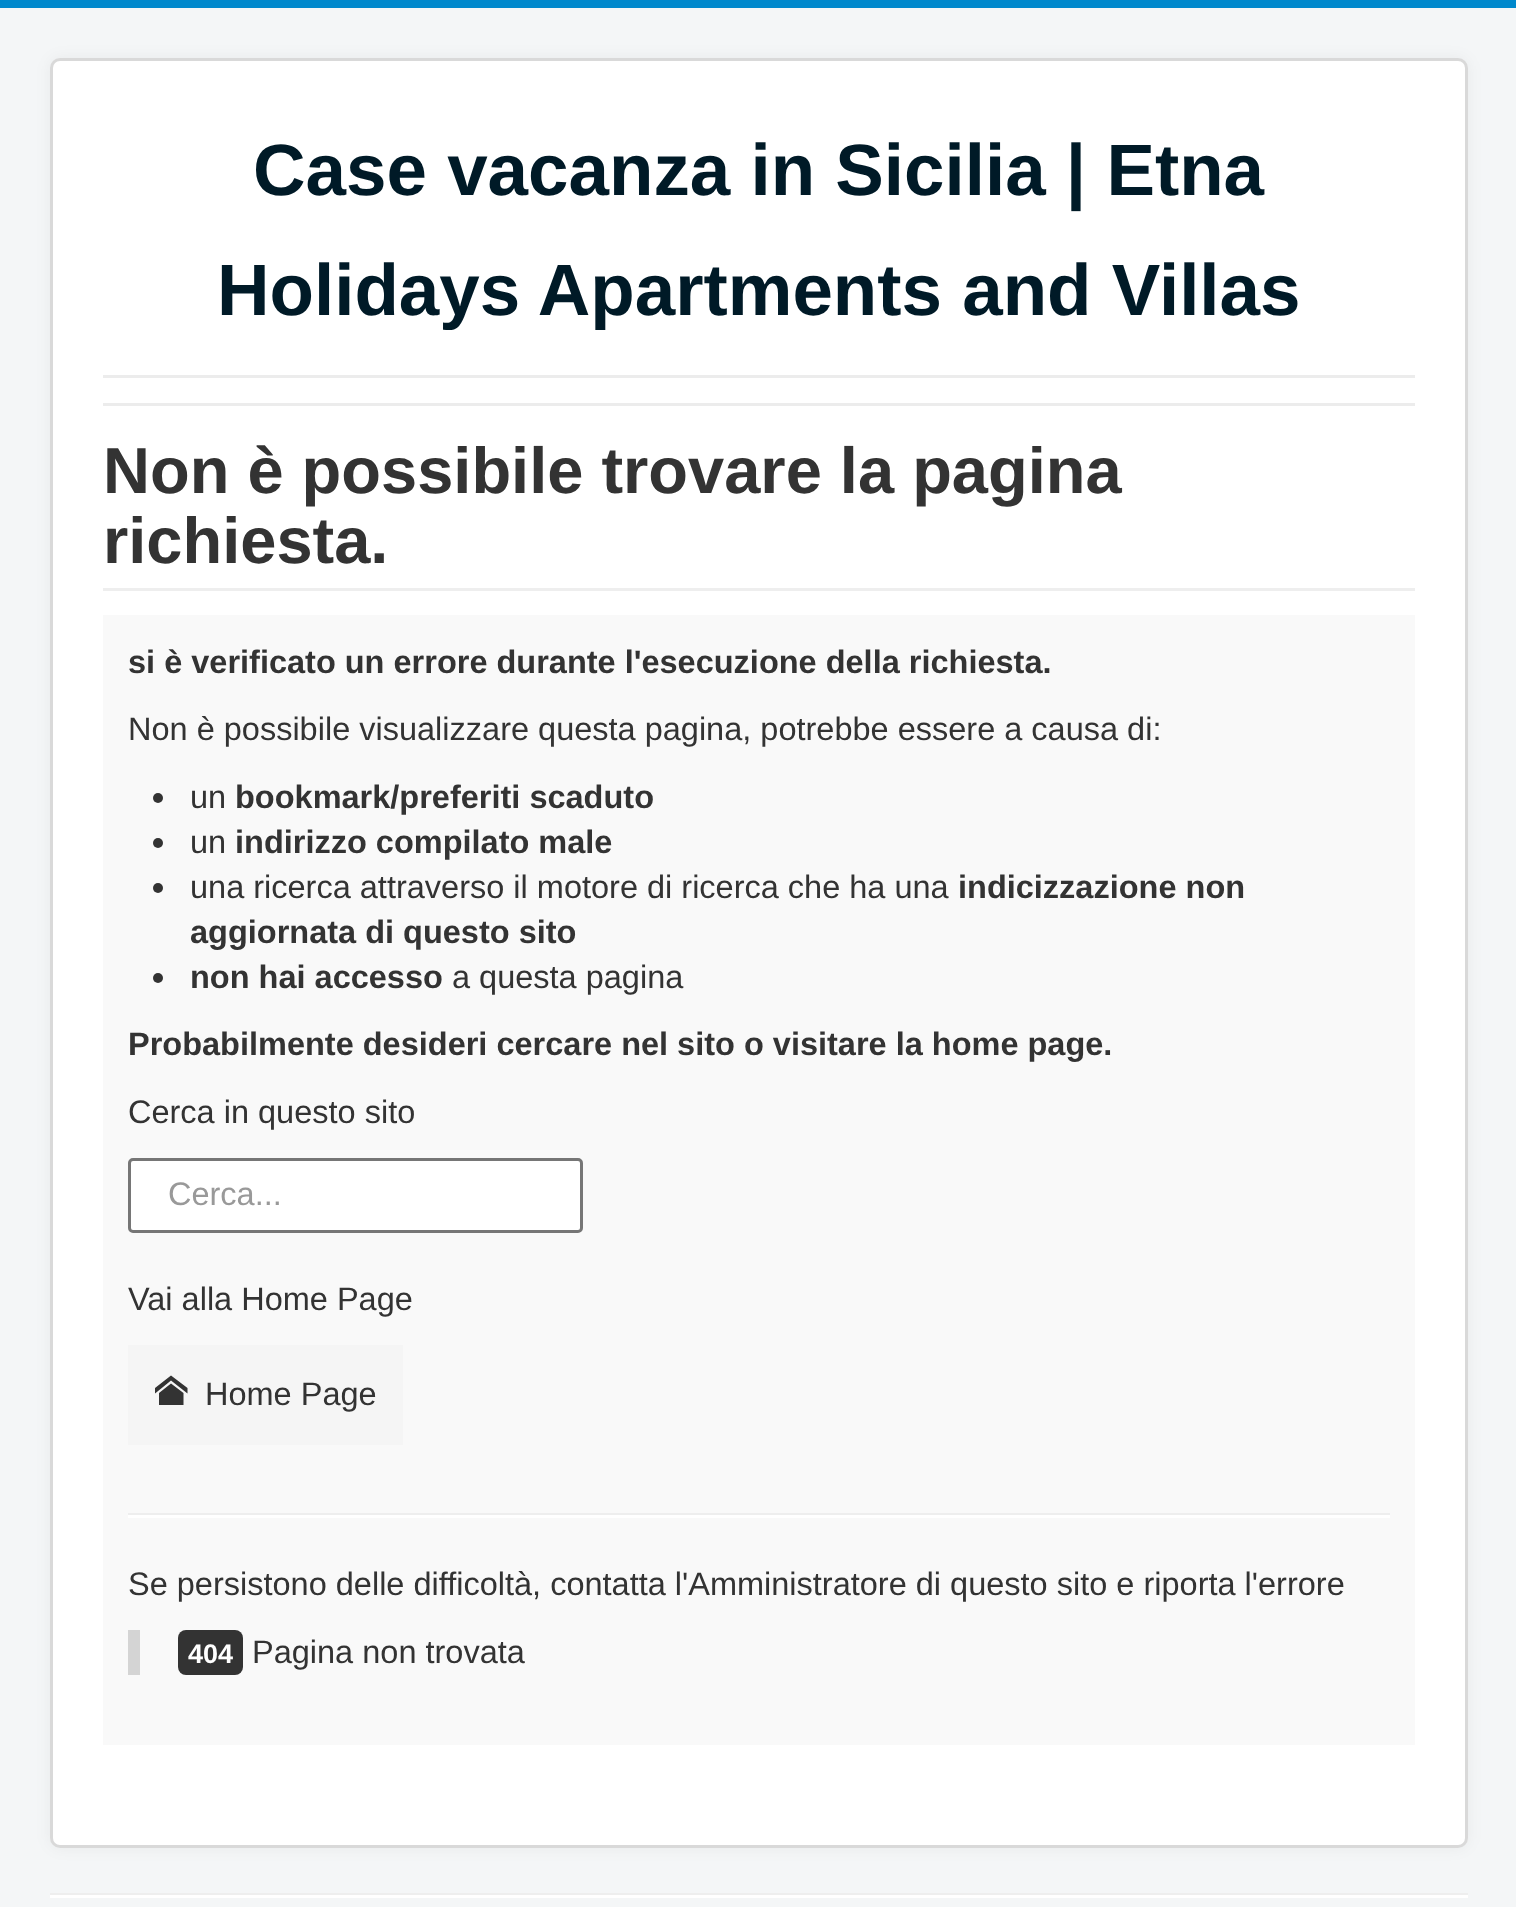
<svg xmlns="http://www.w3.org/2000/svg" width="1516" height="1907">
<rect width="100%" height="100%" fill="#f4f6f7"/>
<rect width="1516" height="8" fill="#08c"/>
<rect x="50" y="58" width="1418" height="1790" rx="10" fill="#0000000d" filter="blur(7.5px)"/>
<rect x="50" y="58" width="1418" height="1790" rx="10" fill="#fff"/>
<rect x="51.5" y="59.5" width="1415" height="1787" rx="8.5" fill="none" stroke="#00000026" stroke-width="3"/>
<text x="253" y="195" style="font-family:Liberation Sans;font-size:72.75px;font-weight:bold;fill:#001a27">Case vacanza in Sicilia | Etna</text>
<text x="217" y="315" style="font-family:Liberation Sans;font-size:72.75px;font-weight:bold;fill:#001a27">Holidays Apartments and Villas</text>
<rect x="103" y="375" width="1312" height="3" fill="#ececec"/>
<rect x="103" y="403" width="1312" height="3" fill="#ececec"/>
<rect x="103" y="588" width="1312" height="3" fill="#eee"/>
<text x="103" y="493" style="font-family:Liberation Sans;font-size:65px;font-weight:bold;fill:#333">Non è possibile trovare la pagina</text>
<text x="103" y="563" style="font-family:Liberation Sans;font-size:65px;font-weight:bold;fill:#333">richiesta.</text>
<rect x="103" y="615" width="1312" height="1130" fill="#f9f9f9"/>
<text x="128" y="673" style="font-family:Liberation Sans;font-size:32.5px;font-weight:bold;fill:#333">si è verificato un errore durante l'esecuzione della richiesta.</text>
<text x="128" y="740" style="font-family:Liberation Sans;font-size:32.5px;fill:#333">Non è possibile visualizzare questa pagina, potrebbe essere a causa di:</text>
<circle cx="158" cy="798" r="5" fill="#333"/>
<text x="190" y="808" style="font-family:Liberation Sans;font-size:32.5px;fill:#333">un</text>
<text x="235" y="808" style="font-family:Liberation Sans;font-size:32.5px;font-weight:bold;fill:#333">bookmark/preferiti scaduto</text>
<circle cx="158" cy="843" r="5" fill="#333"/>
<text x="190" y="853" style="font-family:Liberation Sans;font-size:32.5px;fill:#333">un</text>
<text x="235" y="853" style="font-family:Liberation Sans;font-size:32.5px;font-weight:bold;fill:#333">indirizzo compilato male</text>
<circle cx="158" cy="888" r="5" fill="#333"/>
<text x="190" y="898" style="font-family:Liberation Sans;font-size:32.5px;fill:#333">una ricerca attraverso il motore di ricerca che ha una</text>
<text x="958" y="898" style="font-family:Liberation Sans;font-size:32.5px;font-weight:bold;fill:#333">indicizzazione non</text>
<text x="190" y="943" style="font-family:Liberation Sans;font-size:32.5px;font-weight:bold;fill:#333">aggiornata di questo sito</text>
<circle cx="158" cy="978" r="5" fill="#333"/>
<text x="190" y="988" style="font-family:Liberation Sans;font-size:32.5px;font-weight:bold;fill:#333">non hai accesso</text>
<text x="452" y="988" style="font-family:Liberation Sans;font-size:32.5px;fill:#333">a questa pagina</text>
<text x="128" y="1055" style="font-family:Liberation Sans;font-size:32.5px;font-weight:bold;fill:#333">Probabilmente desideri cercare nel sito o visitare la home page.</text>
<text x="128" y="1123" style="font-family:Liberation Sans;font-size:32.5px;fill:#333">Cerca in questo sito</text>
<rect x="129.5" y="1159.5" width="452" height="72" rx="3.5" fill="#fff" stroke="#767676" stroke-width="3"/>
<text x="168" y="1205" style="font-family:Liberation Sans;font-size:32.5px;fill:#999">Cerca...</text>
<text x="128" y="1310" style="font-family:Liberation Sans;font-size:32.5px;fill:#333">Vai alla Home Page</text>
<rect x="128" y="1345" width="275" height="100" fill="#f5f5f5"/>
<path d="M187.5 1393.5v-5.5l-16.5-12.5l-16 12.5v5.5l16-13zm-4-.5l-12.5-9.5l-12 9.5v12h24.5z" fill="#333"/>
<text x="205" y="1405" style="font-family:Liberation Sans;font-size:32.5px;fill:#333">Home Page</text>
<rect x="128" y="1513" width="1262" height="2" fill="#eee"/>
<rect x="128" y="1515" width="1262" height="3" fill="#fff"/>
<text x="128" y="1595" style="font-family:Liberation Sans;font-size:32.5px;fill:#333">Se persistono delle difficoltà, contatta l'Amministratore di questo sito e riporta l'errore</text>
<rect x="128" y="1630" width="12" height="45" fill="#d4d4d4"/>
<rect x="178" y="1630" width="65" height="45" rx="8" fill="#333"/>
<text x="188" y="1663" style="font-family:Liberation Sans;font-size:27px;font-weight:bold;fill:#fff">404</text>
<text x="252" y="1663" style="font-family:Liberation Sans;font-size:32.5px;fill:#333">Pagina non trovata</text>
<rect x="50" y="1893" width="1418" height="2" fill="#eee"/>
<rect x="50" y="1895" width="1418" height="3" fill="#fff"/>
</svg>
